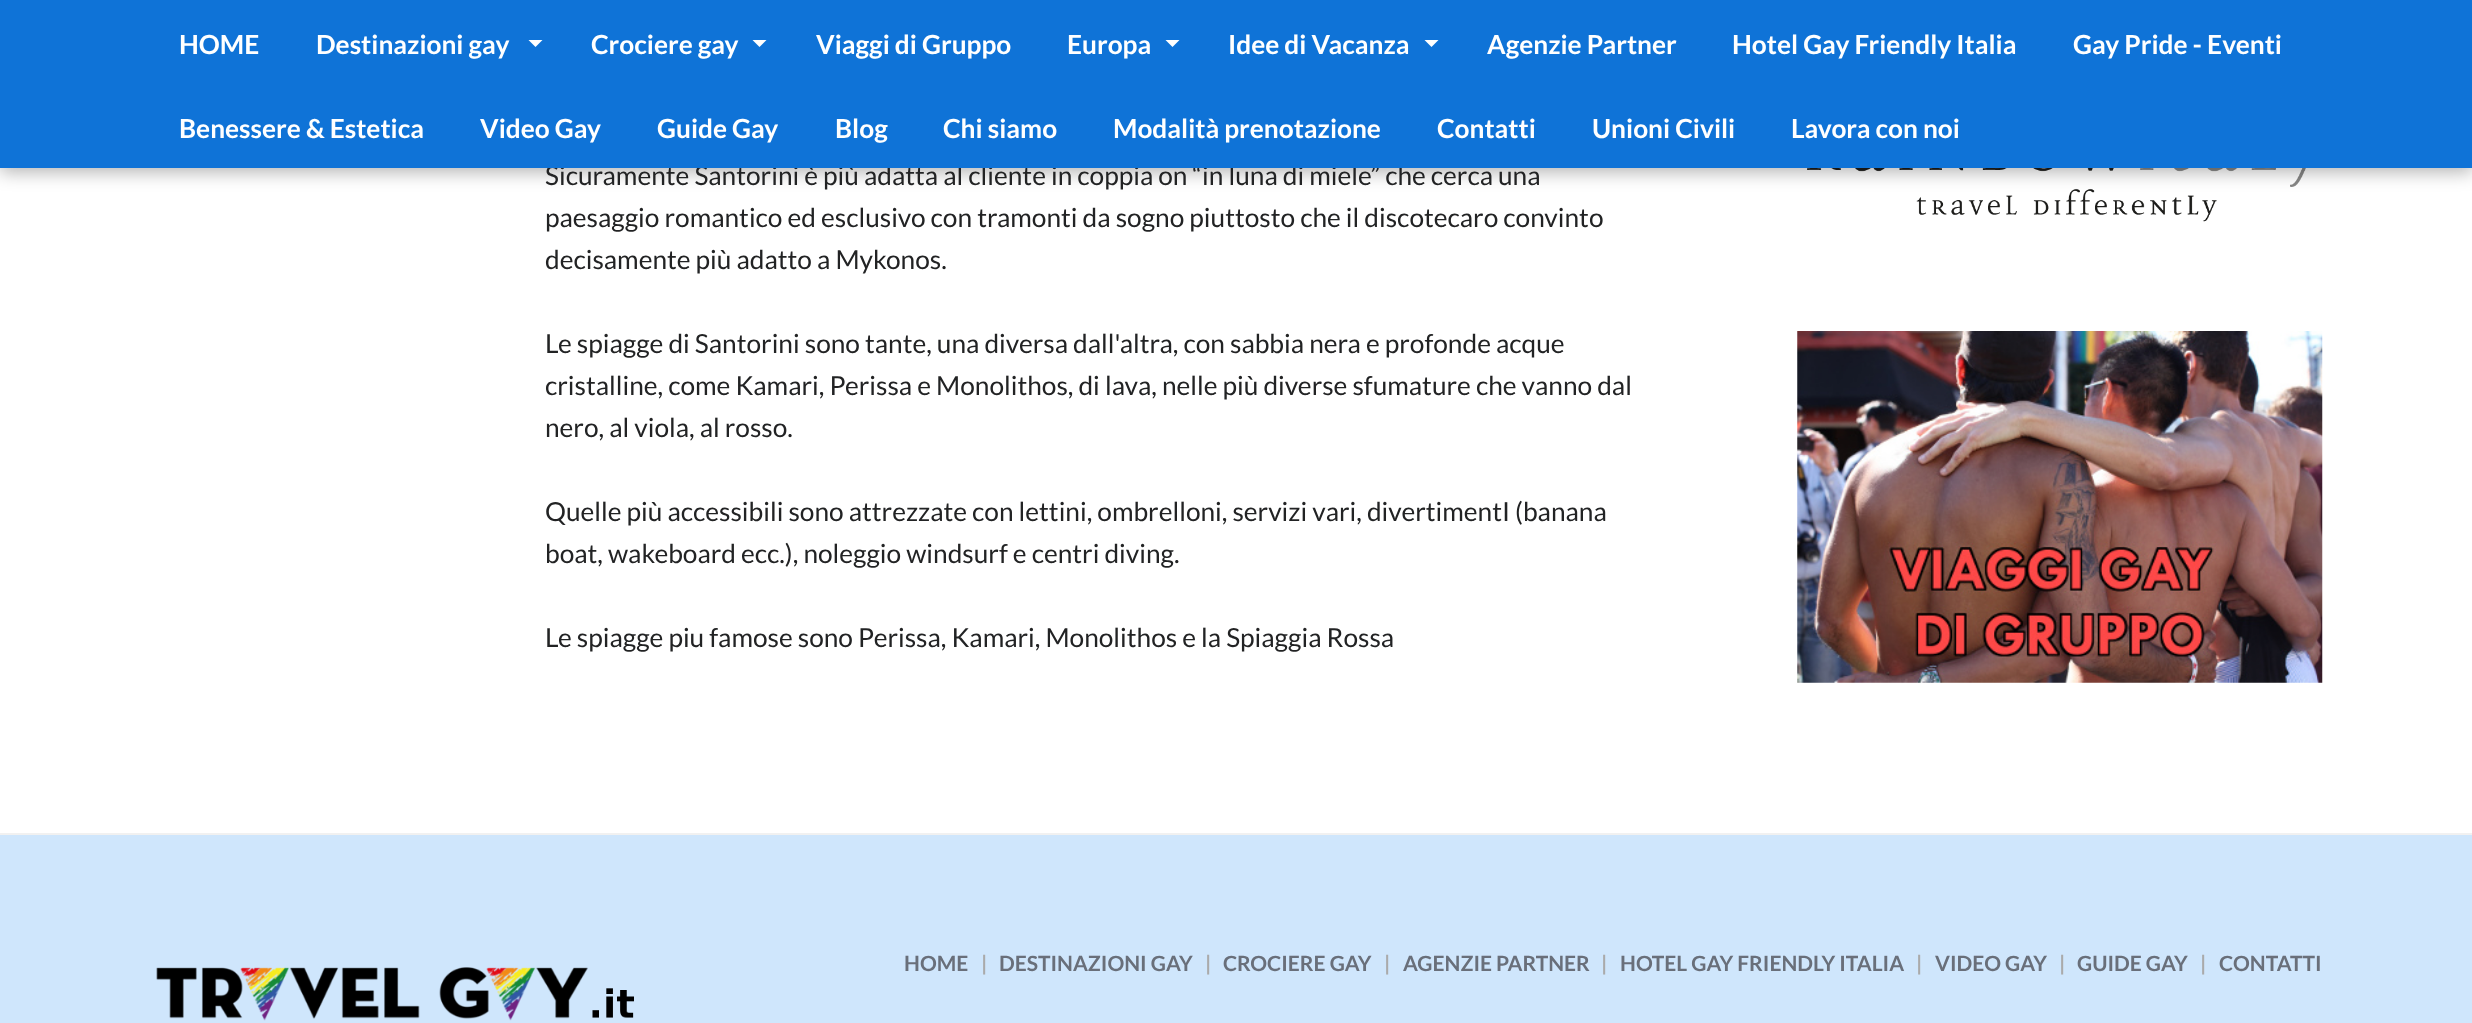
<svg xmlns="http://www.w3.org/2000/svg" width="2472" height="1023">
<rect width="100%" height="100%" fill="#fff"/>
<image x="1807" y="168" width="499" height="54" href="media/1.png"/>
<rect y="-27" width="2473" height="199" fill="#0000004d" filter="blur(9px)"/>
<text x="545" y="185" style="font-family:Lato;font-size:26.25px;fill:#222324">Sicuramente Santorini è più adatta al cliente in coppia on “in luna di miele” che cerca una</text>
<rect width="2472" height="168" fill="#0f73d7"/>
<text x="179" y="54" style="font-family:Lato;font-size:26.25px;font-weight:bold;fill:#fff">HOME</text>
<text x="316" y="54" style="font-family:Lato;font-size:26.25px;font-weight:bold;fill:#fff">Destinazioni gay</text>
<path d="M528.5 40h14l-7 7z" fill="#fff"/>
<text x="591" y="54" style="font-family:Lato;font-size:26.25px;font-weight:bold;fill:#fff">Crociere gay</text>
<path d="M752.5 40h14l-7 7z" fill="#fff"/>
<text x="816" y="54" style="font-family:Lato;font-size:26.25px;font-weight:bold;fill:#fff">Viaggi di Gruppo</text>
<text x="1067" y="54" style="font-family:Lato;font-size:26.25px;font-weight:bold;fill:#fff">Europa</text>
<path d="M1165.5 40h14l-7 7z" fill="#fff"/>
<text x="1228" y="54" style="font-family:Lato;font-size:26.25px;font-weight:bold;fill:#fff">Idee di Vacanza</text>
<path d="M1424.5 40h14l-7 7z" fill="#fff"/>
<text x="1487" y="54" style="font-family:Lato;font-size:26.25px;font-weight:bold;fill:#fff">Agenzie Partner</text>
<text x="1732" y="54" style="font-family:Lato;font-size:26.25px;font-weight:bold;fill:#fff">Hotel Gay Friendly Italia</text>
<text x="2073" y="54" style="font-family:Lato;font-size:26.25px;font-weight:bold;fill:#fff">Gay Pride - Eventi</text>
<text x="179" y="138" style="font-family:Lato;font-size:26.25px;font-weight:bold;fill:#fff">Benessere &amp; Estetica</text>
<text x="480" y="138" style="font-family:Lato;font-size:26.25px;font-weight:bold;fill:#fff">Video Gay</text>
<text x="657" y="138" style="font-family:Lato;font-size:26.25px;font-weight:bold;fill:#fff">Guide Gay</text>
<text x="835" y="138" style="font-family:Lato;font-size:26.25px;font-weight:bold;fill:#fff">Blog</text>
<text x="943" y="138" style="font-family:Lato;font-size:26.25px;font-weight:bold;fill:#fff">Chi siamo</text>
<text x="1113" y="138" style="font-family:Lato;font-size:26.25px;font-weight:bold;fill:#fff">Modalità prenotazione</text>
<text x="1437" y="138" style="font-family:Lato;font-size:26.25px;font-weight:bold;fill:#fff">Contatti</text>
<text x="1592" y="138" style="font-family:Lato;font-size:26.25px;font-weight:bold;fill:#fff">Unioni Civili</text>
<text x="1791" y="138" style="font-family:Lato;font-size:26.25px;font-weight:bold;fill:#fff">Lavora con noi</text>
<text x="545" y="227" style="font-family:Lato;font-size:26.25px;fill:#222324">paesaggio romantico ed esclusivo con tramonti da sogno piuttosto che il discotecaro convinto</text>
<text x="545" y="269" style="font-family:Lato;font-size:26.25px;fill:#222324">decisamente più adatto a Mykonos.</text>
<text x="545" y="353" style="font-family:Lato;font-size:26.25px;fill:#222324">Le spiagge di Santorini sono tante, una diversa dall'altra, con sabbia nera e profonde acque</text>
<text x="545" y="395" style="font-family:Lato;font-size:26.25px;fill:#222324">cristalline, come Kamari, Perissa e Monolithos, di lava, nelle più diverse sfumature che vanno dal</text>
<text x="545" y="437" style="font-family:Lato;font-size:26.25px;fill:#222324">nero, al viola, al rosso.</text>
<text x="545" y="521" style="font-family:Lato;font-size:26.25px;fill:#222324">Quelle più accessibili sono attrezzate con lettini, ombrelloni, servizi vari, divertimentI (banana</text>
<text x="545" y="563" style="font-family:Lato;font-size:26.25px;fill:#222324">boat, wakeboard ecc.), noleggio windsurf e centri diving.</text>
<text x="545" y="647" style="font-family:Lato;font-size:26.25px;fill:#222324">Le spiagge piu famose sono Perissa, Kamari, Monolithos e la Spiaggia Rossa</text>
<image x="1797" y="331" width="526" height="352" href="media/2.png"/>
<rect y="833" width="2472" height="2" fill="#f1f1f1"/>
<rect y="835" width="2472" height="188" fill="#cfe6fc"/>
<text x="904" y="971" style="font-family:Lato;font-size:21px;font-weight:bold;fill:#696f7a">HOME</text>
<text x="981" y="971" style="font-family:Lato;font-size:21px;font-weight:bold;fill:#aaa">|</text>
<text x="999" y="971" style="font-family:Lato;font-size:21px;font-weight:bold;fill:#696f7a">DESTINAZIONI GAY</text>
<text x="1205" y="971" style="font-family:Lato;font-size:21px;font-weight:bold;fill:#aaa">|</text>
<text x="1223" y="971" style="font-family:Lato;font-size:21px;font-weight:bold;fill:#696f7a">CROCIERE GAY</text>
<text x="1384" y="971" style="font-family:Lato;font-size:21px;font-weight:bold;fill:#aaa">|</text>
<text x="1403" y="971" style="font-family:Lato;font-size:21px;font-weight:bold;fill:#696f7a">AGENZIE PARTNER</text>
<text x="1601" y="971" style="font-family:Lato;font-size:21px;font-weight:bold;fill:#aaa">|</text>
<text x="1620" y="971" style="font-family:Lato;font-size:21px;font-weight:bold;fill:#696f7a">HOTEL GAY FRIENDLY ITALIA</text>
<text x="1916" y="971" style="font-family:Lato;font-size:21px;font-weight:bold;fill:#aaa">|</text>
<text x="1935" y="971" style="font-family:Lato;font-size:21px;font-weight:bold;fill:#696f7a">VIDEO GAY</text>
<text x="2059" y="971" style="font-family:Lato;font-size:21px;font-weight:bold;fill:#aaa">|</text>
<text x="2077" y="971" style="font-family:Lato;font-size:21px;font-weight:bold;fill:#696f7a">GUIDE GAY</text>
<text x="2200" y="971" style="font-family:Lato;font-size:21px;font-weight:bold;fill:#aaa">|</text>
<text x="2219" y="971" style="font-family:Lato;font-size:21px;font-weight:bold;fill:#696f7a">CONTATTI</text>
<image x="156" y="967" width="478" height="54" href="media/3.png"/>
</svg>
